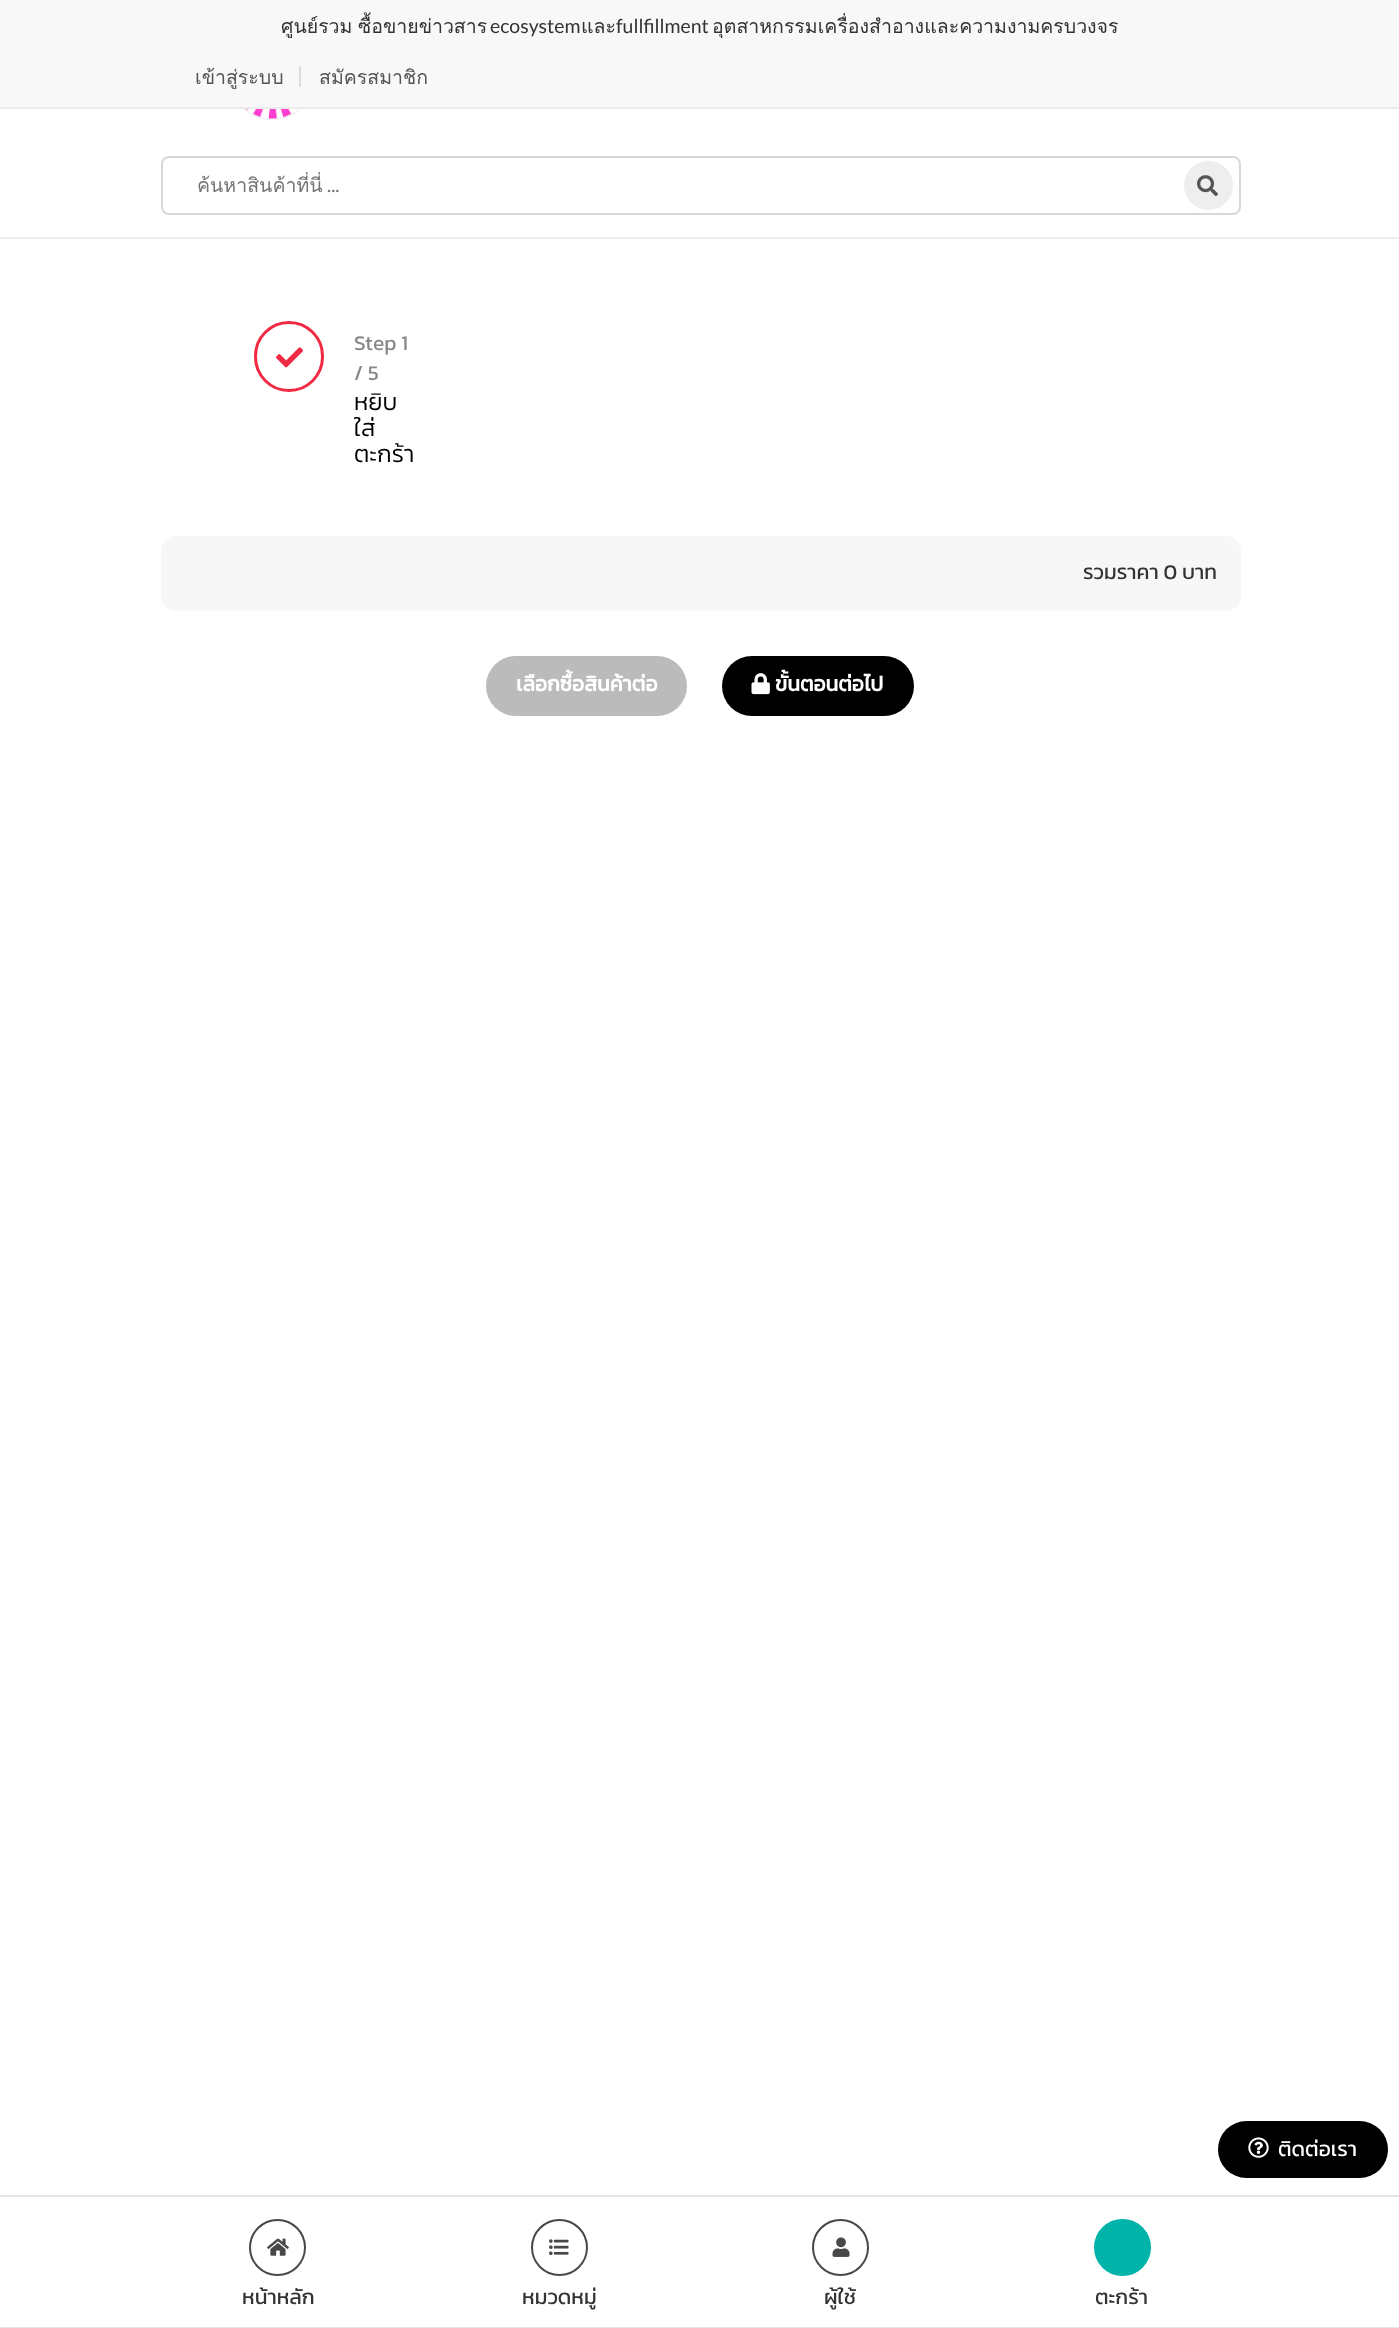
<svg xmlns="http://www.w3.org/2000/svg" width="1399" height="2328">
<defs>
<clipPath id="clip1"><rect x="198" y="170" width="609" height="31"/></clipPath>
</defs>
<rect width="100%" height="100%" fill="#fff"/>
<rect width="1399" height="107" fill="#f8f8f8"/>
<rect y="107" width="1399" height="2" fill="#ebebeb"/>
<text x="281" y="33" word-spacing="-1" style="font-family:Loma;font-size:19.5px;fill:#333">ศูนย์รวม ซื้อขายข่าวสาร</text>
<text x="490" y="33" style="font-family:Lato;font-size:19.5px;fill:#333">ecosystem</text>
<text x="581" y="33" style="font-family:Loma;font-size:19.5px;fill:#333">และ</text>
<text x="616" y="33" style="font-family:Lato;font-size:19.5px;fill:#333">fullfillment</text>
<text x="712" y="33" style="font-family:Loma;font-size:19.5px;fill:#333">อุตสาหกรรมเครื่องสำอางและความงามครบวงจร</text>
<rect x="299" y="66" width="2" height="21" fill="#ddd"/>
<text x="195" y="84" style="font-family:Loma;font-size:19.5px;fill:#555">เข้าสู่ระบบ</text>
<text x="319" y="84" style="font-family:Loma;font-size:19.5px;fill:#555">สมัครสมาชิก</text>
<image x="244" y="109" width="56" height="11" href="media/1.png"/>
<rect x="162" y="157" width="1078" height="57" rx="7" fill="none" stroke="#d8d8d8" stroke-width="2"/>
<g clip-path="url(#clip1)">
<text x="197" y="192" style="font-family:Loma;font-size:19.5px;fill:#757575">ค้นหาสินค้าที่นี่</text>
</g>
<text x="327" y="192" style="font-family:Lato;font-size:19.5px;fill:#757575">...</text>
<circle cx="1208.5" cy="185.5" r="24.5" fill="#eee"/>
<image x="1197" y="175" width="21" height="22" href="media/2.png"/>
<rect y="237" width="1399" height="2" fill="#eee"/>
<rect x="255.5" y="322.5" width="67" height="68" rx="33.5" fill="none" stroke="#f12a43" stroke-width="3"/>
<image x="276" y="347" width="27" height="21" href="media/3.png"/>
<text x="354" y="350" style="font-family:Kanit;font-size:21px;fill:#888">Step 1</text>
<text x="354" y="380" style="font-family:Kanit;font-size:21px;fill:#888">/ 5</text>
<text x="354" y="410" style="font-family:Kanit;font-size:24px;font-weight:300;fill:#000">หยิบ</text>
<text x="354" y="436" style="font-family:Kanit;font-size:24px;font-weight:300;fill:#000">ใส่</text>
<text x="354" y="462" style="font-family:Kanit;font-size:24px;font-weight:300;fill:#000">ตะกร้า</text>
<rect x="161" y="536" width="1080" height="75" rx="15" fill="#f7f7f7"/>
<text x="1083" y="579" style="font-family:Kanit;font-size:21px;fill:#333">รวมราคา 0 บาท</text>
<rect x="486" y="656" width="201" height="60" rx="30" fill="#bbb"/>
<text x="516" y="691" style="font-family:Kanit;font-size:21px;font-weight:bold;fill:#fff">เลือกซื้อสินค้าต่อ</text>
<rect x="722" y="656" width="192" height="60" rx="30" fill="#000"/>
<image x="751" y="673" width="19" height="22" href="media/4.png"/>
<text x="775" y="691" style="font-family:Kanit;font-size:21px;font-weight:bold;fill:#fff">ขั้นตอนต่อไป</text>
<rect x="1218" y="2121" width="170" height="57" rx="28.5" fill="#000"/>
<image x="1248" y="2137" width="21" height="21" href="media/5.png"/>
<text x="1278" y="2156" style="font-family:Kanit;font-size:21px;fill:#fff">ติดต่อเรา</text>
<rect y="2195" width="1399" height="2" fill="#e5e5e5"/>
<circle cx="277.5" cy="2247.5" r="27.5" fill="none" stroke="#484848" stroke-width="2"/>
<image x="267" y="2238" width="22" height="18" href="media/6.png"/>
<text x="242" y="2304" style="font-family:Kanit;font-size:21px;fill:#333">หน้าหลัก</text>
<circle cx="559.5" cy="2247.5" r="27.5" fill="none" stroke="#484848" stroke-width="2"/>
<image x="549" y="2239" width="20" height="17" href="media/7.png"/>
<text x="522" y="2304" style="font-family:Kanit;font-size:21px;fill:#333">หมวดหมู่</text>
<circle cx="840.5" cy="2247.5" r="27.5" fill="none" stroke="#484848" stroke-width="2"/>
<image x="832" y="2237" width="18" height="20" href="media/8.png"/>
<text x="824" y="2304" style="font-family:Kanit;font-size:21px;fill:#333">ผู้ใช้</text>
<circle cx="1122.5" cy="2247.5" r="27.5" fill="#00b4aa" stroke="#00b4aa" stroke-width="2"/>
<text x="1095" y="2304" style="font-family:Kanit;font-size:21px;fill:#333">ตะกร้า</text>
<rect y="2327" width="1399" height="1" fill="#e5e5e5"/>
</svg>
